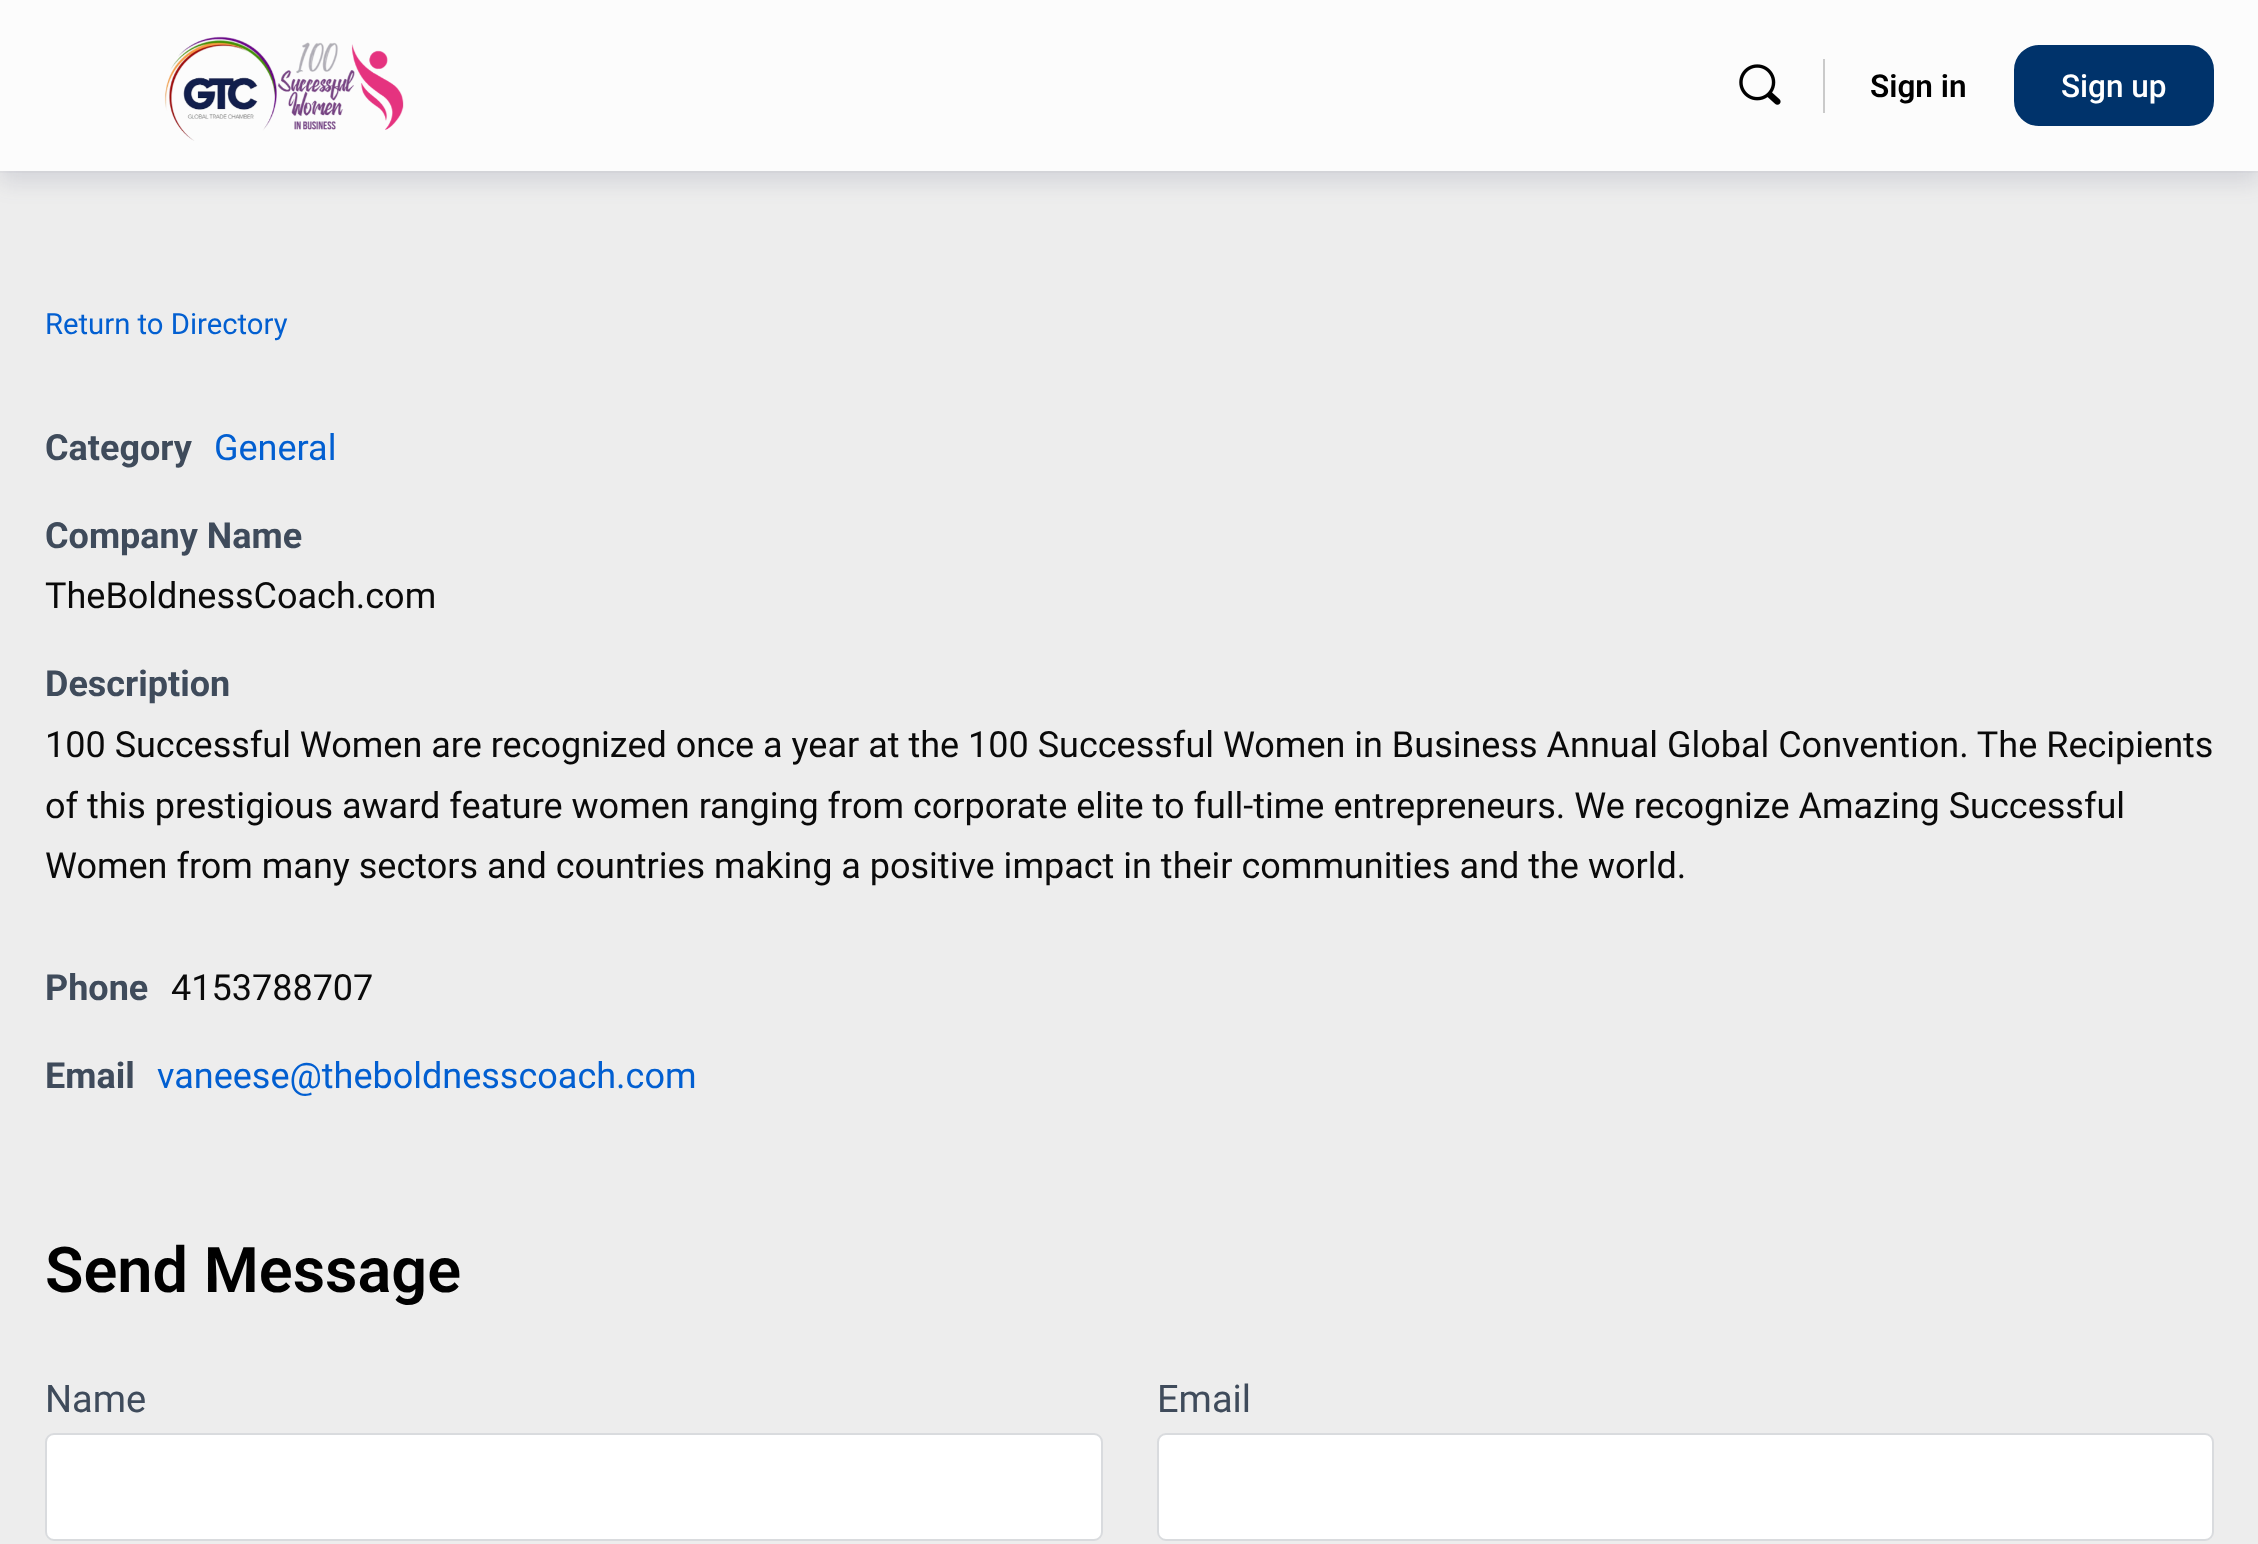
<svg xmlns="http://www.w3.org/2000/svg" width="2258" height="1544">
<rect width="100%" height="100%" fill="#ededed"/>
<rect y="11" width="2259" height="171" fill="#41476c26" filter="blur(11px)"/>
<rect y="171" width="2258" height="2" fill="#8b8d9d0d"/>
<rect width="2258" height="171" fill="#fcfcfc"/>
<image x="164" y="36" width="240" height="105" href="media/1.png"/>
<image x="1739" y="64" width="42" height="41" href="media/2.png"/>
<rect x="1823" y="59" width="2" height="54" fill="#cacaca"/>
<text x="1870" y="97" style="font-family:Roboto;font-size:31.5px;font-weight:600;fill:#000">Sign in</text>
<rect x="2015" y="46" width="198" height="79" rx="24" fill="#00336b" stroke="#00336b" stroke-width="2"/>
<text x="2061" y="97" style="font-family:Roboto;font-size:31.5px;font-weight:500;fill:#fff">Sign up</text>
<text x="45" y="334" style="font-family:Roboto;font-size:29.25px;fill:#025fd1">Return to Directory</text>
<text x="45" y="460" style="font-family:Roboto;font-size:36px;font-weight:bold;fill:#3f4b5b">Category</text>
<text x="214" y="460" style="font-family:Roboto;font-size:36px;fill:#025fd1">General</text>
<text x="45" y="548" style="font-family:Roboto;font-size:36px;font-weight:bold;fill:#3f4b5b">Company Name</text>
<text x="45" y="608" style="font-family:Roboto;font-size:36px;fill:#0a0a0a">TheBoldnessCoach.com</text>
<text x="45" y="696" style="font-family:Roboto;font-size:36px;font-weight:bold;fill:#3f4b5b">Description</text>
<text x="45" y="757" style="font-family:Roboto;font-size:36px;fill:#0a0a0a">100 Successful Women are recognized once a year at the 100 Successful Women in Business Annual Global Convention. The Recipients</text>
<text x="45" y="818" style="font-family:Roboto;font-size:36px;fill:#0a0a0a">of this prestigious award feature women ranging from corporate elite to full-time entrepreneurs. We recognize Amazing Successful</text>
<text x="45" y="878" style="font-family:Roboto;font-size:36px;fill:#0a0a0a">Women from many sectors and countries making a positive impact in their communities and the world.</text>
<text x="45" y="1000" style="font-family:Roboto;font-size:36px;font-weight:bold;fill:#3f4b5b">Phone</text>
<text x="171" y="1000" style="font-family:Roboto;font-size:36px;fill:#0a0a0a">4153788707</text>
<text x="45" y="1088" style="font-family:Roboto;font-size:36px;font-weight:bold;fill:#3f4b5b">Email</text>
<text x="157" y="1088" style="font-family:Roboto;font-size:36px;fill:#025fd1">vaneese@theboldnesscoach.com</text>
<text x="45" y="1292" style="font-family:Roboto;font-size:63px;font-weight:600;fill:#000">Send Message</text>
<text x="45" y="1412" style="font-family:Roboto;font-size:38px;fill:#3f4b5b">Name</text>
<rect x="45" y="1433" width="1058" height="108" rx="9" fill="#fff"/>
<rect x="46" y="1434" width="1056" height="106" rx="8" fill="none" stroke="#3f4b5b33" stroke-width="2"/>
<text x="1157" y="1412" style="font-family:Roboto;font-size:38px;fill:#3f4b5b">Email</text>
<rect x="1157" y="1433" width="1057" height="108" rx="9" fill="#fff"/>
<rect x="1158" y="1434" width="1055" height="106" rx="8" fill="none" stroke="#3f4b5b33" stroke-width="2"/>
</svg>
